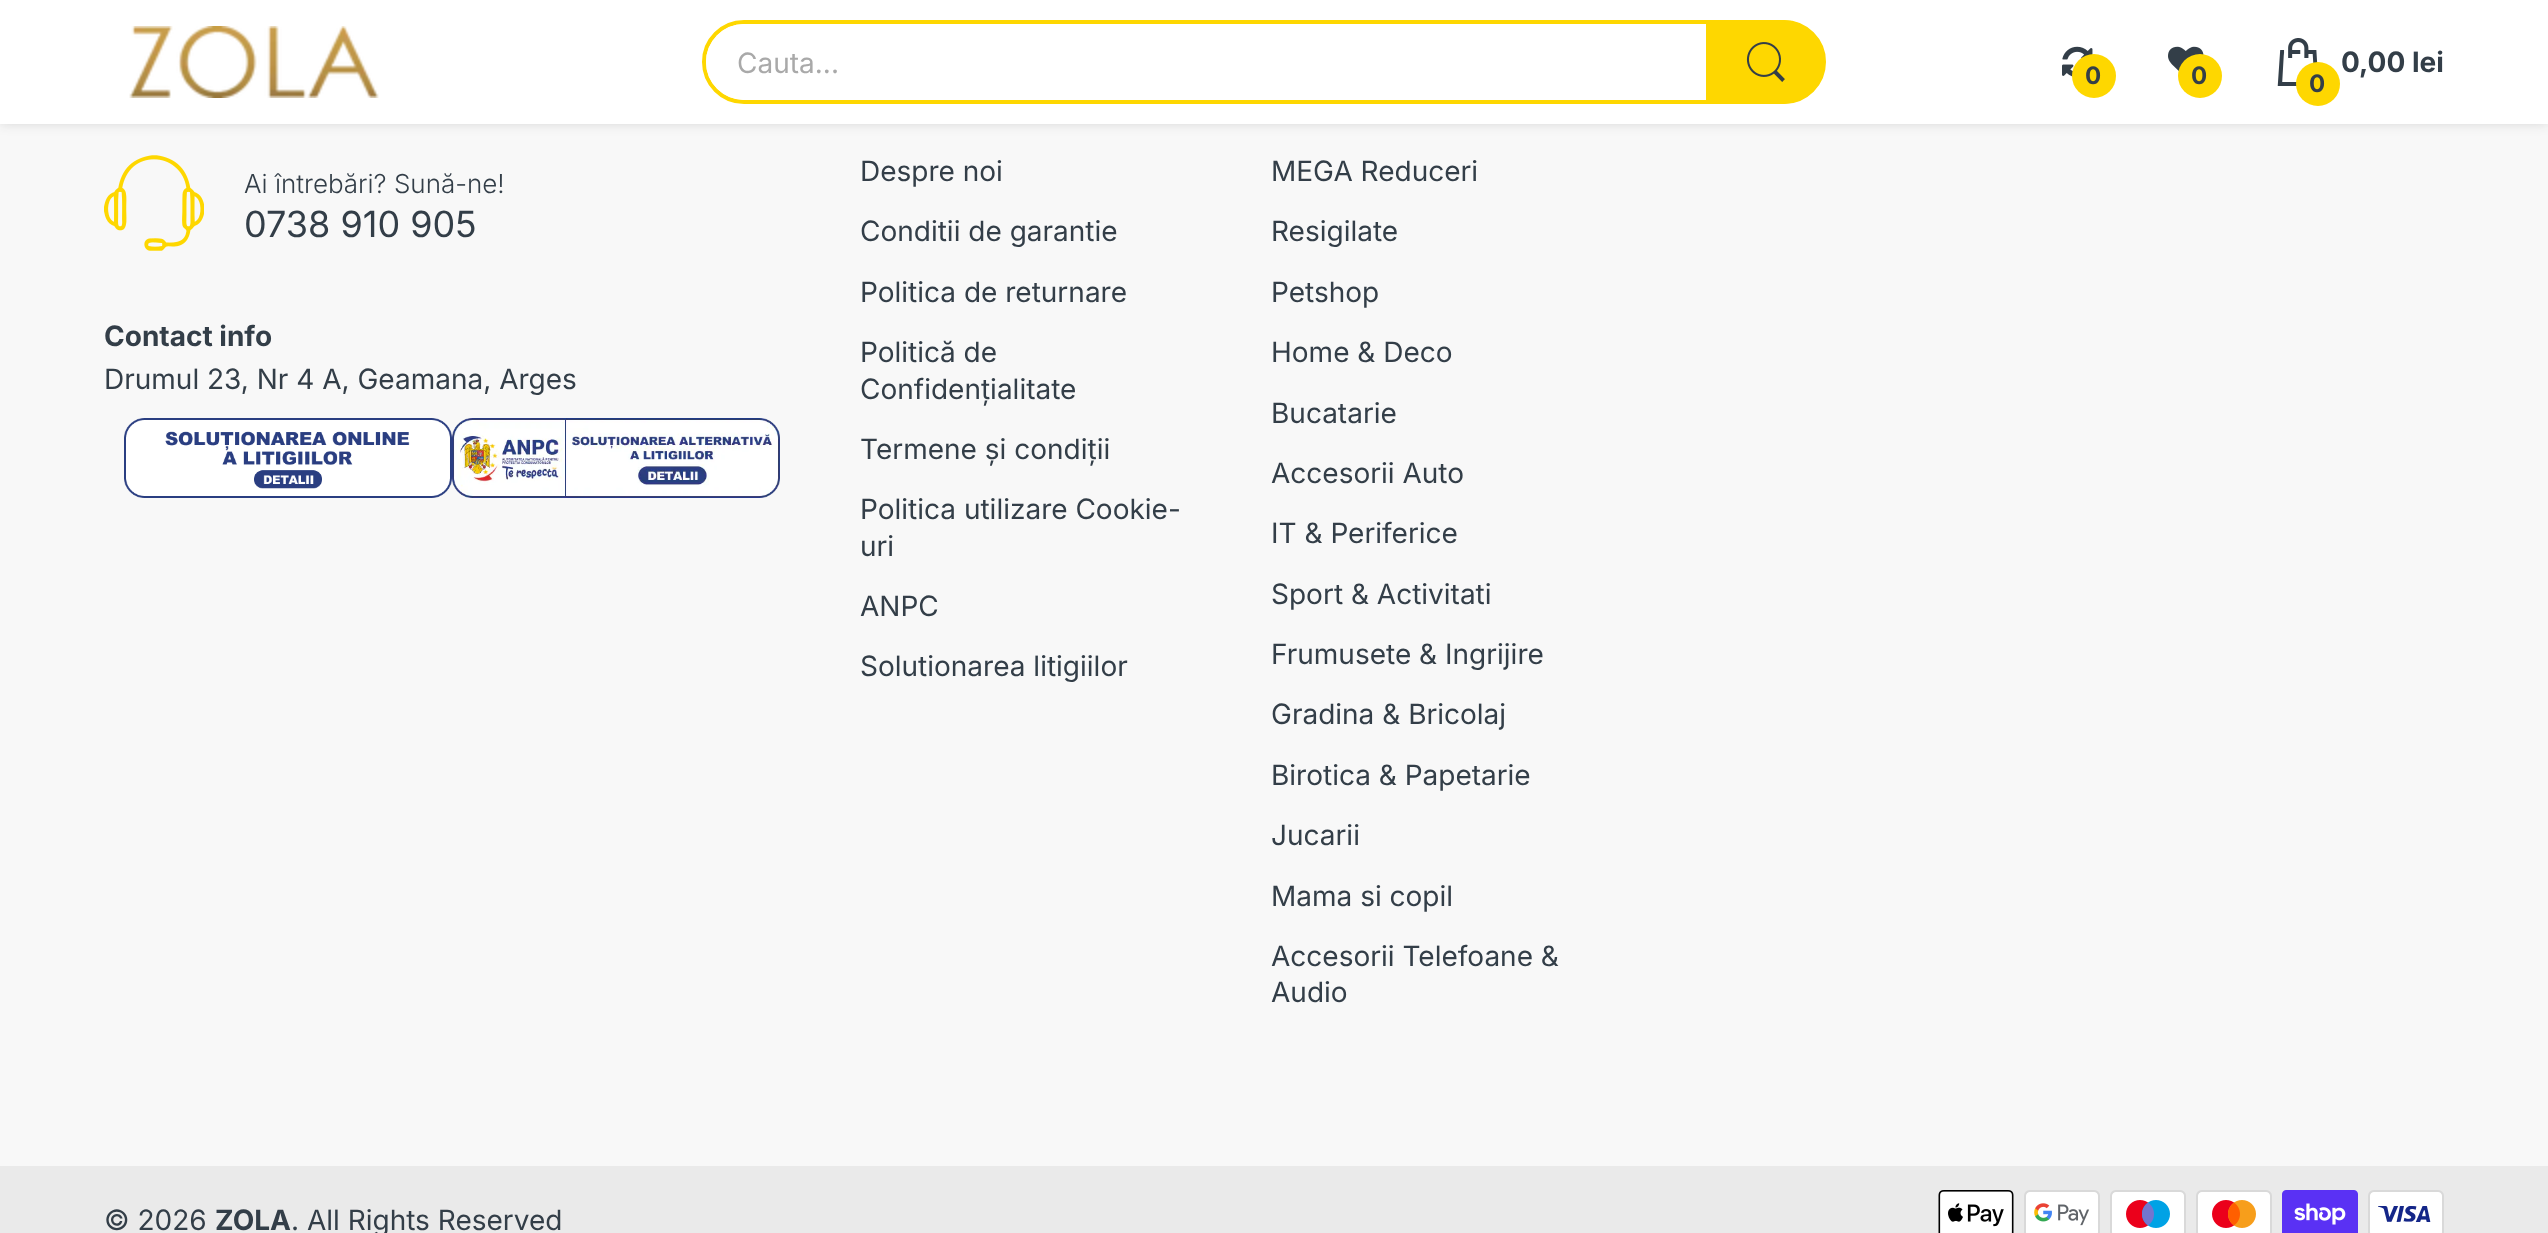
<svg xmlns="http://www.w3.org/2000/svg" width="2548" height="1233">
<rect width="100%" height="100%" fill="#f8f8f8"/>
<rect width="2548" height="124" fill="#20212426" filter="blur(6px)"/>
<rect width="2548" height="124" fill="#fff"/>
<image x="129" y="26" width="250" height="72" href="media/1.png"/>
<rect x="704" y="22" width="1118" height="80" rx="40" fill="none" stroke="#fed700" stroke-width="4"/>
<rect x="706" y="24" width="1114" height="76" rx="38" fill="#fff"/>
<text x="737" y="73" style="font-family:Inter;font-size:28px;fill:#a9a9a9">Cauta...</text>
<path d="M1707 21h77c22.5 0 41 18.5 41 41c0 22.5-18.5 41-41 41h-77z" fill="#fed700" stroke="#fed700" stroke-width="2"/>
<image x="1746" y="42" width="39" height="40" href="media/2.png"/>
<image x="2062" y="46" width="31" height="31" href="media/3.png"/>
<circle cx="2094" cy="76" r="22" fill="#fed700"/>
<text x="2085" y="84" style="font-family:Inter;font-size:24px;font-weight:bold;fill:#333e48">0</text>
<image x="2168" y="46" width="36" height="26" href="media/4.png"/>
<circle cx="2200" cy="76" r="22" fill="#fed700"/>
<text x="2191" y="84" style="font-family:Inter;font-size:24px;font-weight:bold;fill:#333e48">0</text>
<text x="2341" y="72" style="font-family:Inter;font-size:28px;font-weight:bold;fill:#333e48">0,00 lei</text>
<image x="2277" y="38" width="41" height="48" href="media/5.png"/>
<circle cx="2318" cy="84" r="22" fill="#fed700"/>
<text x="2309" y="92" style="font-family:Inter;font-size:24px;font-weight:bold;fill:#333e48">0</text>
<image x="104" y="155" width="100" height="96" href="media/6.png"/>
<text x="244" y="193" style="font-family:Inter;font-size:26px;font-weight:300;fill:#333e48">Ai întrebări? Sună-ne!</text>
<text x="244" y="237" style="font-family:Inter;font-size:36px;fill:#333e48">0738 910 905</text>
<text x="104" y="346" style="font-family:Inter;font-size:28px;font-weight:bold;fill:#333e48">Contact info</text>
<text x="104" y="389" style="font-family:Inter;font-size:28px;fill:#333e48">Drumul 23, Nr 4 A, Geamana, Arges</text>
<image x="124" y="418" width="328" height="80" href="media/7.png"/>
<image x="452" y="418" width="328" height="80" href="media/8.png"/>
<text x="860" y="181" style="font-family:Inter;font-size:28px;fill:#333e48">Despre noi</text>
<text x="860" y="241" style="font-family:Inter;font-size:28px;fill:#333e48">Conditii de garantie</text>
<text x="860" y="302" style="font-family:Inter;font-size:28px;fill:#333e48">Politica de returnare</text>
<text x="860" y="362" style="font-family:Inter;font-size:28px;fill:#333e48">Politică de</text>
<text x="860" y="399" style="font-family:Inter;font-size:28px;fill:#333e48">Confidențialitate</text>
<text x="860" y="459" style="font-family:Inter;font-size:28px;fill:#333e48">Termene și condiții</text>
<text x="860" y="519" style="font-family:Inter;font-size:28px;fill:#333e48">Politica utilizare Cookie-</text>
<text x="860" y="556" style="font-family:Inter;font-size:28px;fill:#333e48">uri</text>
<text x="860" y="616" style="font-family:Inter;font-size:28px;fill:#333e48">ANPC</text>
<text x="860" y="676" style="font-family:Inter;font-size:28px;fill:#333e48">Solutionarea litigiilor</text>
<text x="1271" y="181" style="font-family:Inter;font-size:28px;fill:#333e48">MEGA Reduceri</text>
<text x="1271" y="241" style="font-family:Inter;font-size:28px;fill:#333e48">Resigilate</text>
<text x="1271" y="302" style="font-family:Inter;font-size:28px;fill:#333e48">Petshop</text>
<text x="1271" y="362" style="font-family:Inter;font-size:28px;fill:#333e48">Home &amp; Deco</text>
<text x="1271" y="423" style="font-family:Inter;font-size:28px;fill:#333e48">Bucatarie</text>
<text x="1271" y="483" style="font-family:Inter;font-size:28px;fill:#333e48">Accesorii Auto</text>
<text x="1271" y="543" style="font-family:Inter;font-size:28px;fill:#333e48">IT &amp; Periferice</text>
<text x="1271" y="604" style="font-family:Inter;font-size:28px;fill:#333e48">Sport &amp; Activitati</text>
<text x="1271" y="664" style="font-family:Inter;font-size:28px;fill:#333e48">Frumusete &amp; Ingrijire</text>
<text x="1271" y="724" style="font-family:Inter;font-size:28px;fill:#333e48">Gradina &amp; Bricolaj</text>
<text x="1271" y="785" style="font-family:Inter;font-size:28px;fill:#333e48">Birotica &amp; Papetarie</text>
<text x="1271" y="845" style="font-family:Inter;font-size:28px;fill:#333e48">Jucarii</text>
<text x="1271" y="906" style="font-family:Inter;font-size:28px;fill:#333e48">Mama si copil</text>
<text x="1271" y="966" style="font-family:Inter;font-size:28px;fill:#333e48">Accesorii Telefoane &amp;</text>
<text x="1271" y="1002" style="font-family:Inter;font-size:28px;fill:#333e48">Audio</text>
<rect y="1166" width="2548" height="67" fill="#eaeaea"/>
<text x="104" y="1230" style="font-family:Inter;font-size:28px;fill:#333e48">© 2026</text>
<text x="215" y="1230" style="font-family:Inter;font-size:28px;font-weight:bold;fill:#333e48">ZOLA</text>
<text x="291" y="1230" style="font-family:Inter;font-size:28px;fill:#333e48">. All Rights Reserved</text>
<image x="1938" y="1190" width="76" height="43" href="media/9.png"/>
<image x="2024" y="1190" width="76" height="43" href="media/10.png"/>
<image x="2110" y="1190" width="76" height="43" href="media/11.png"/>
<image x="2196" y="1190" width="76" height="43" href="media/12.png"/>
<image x="2282" y="1190" width="76" height="43" href="media/13.png"/>
<image x="2368" y="1190" width="76" height="43" href="media/14.png"/>
</svg>
